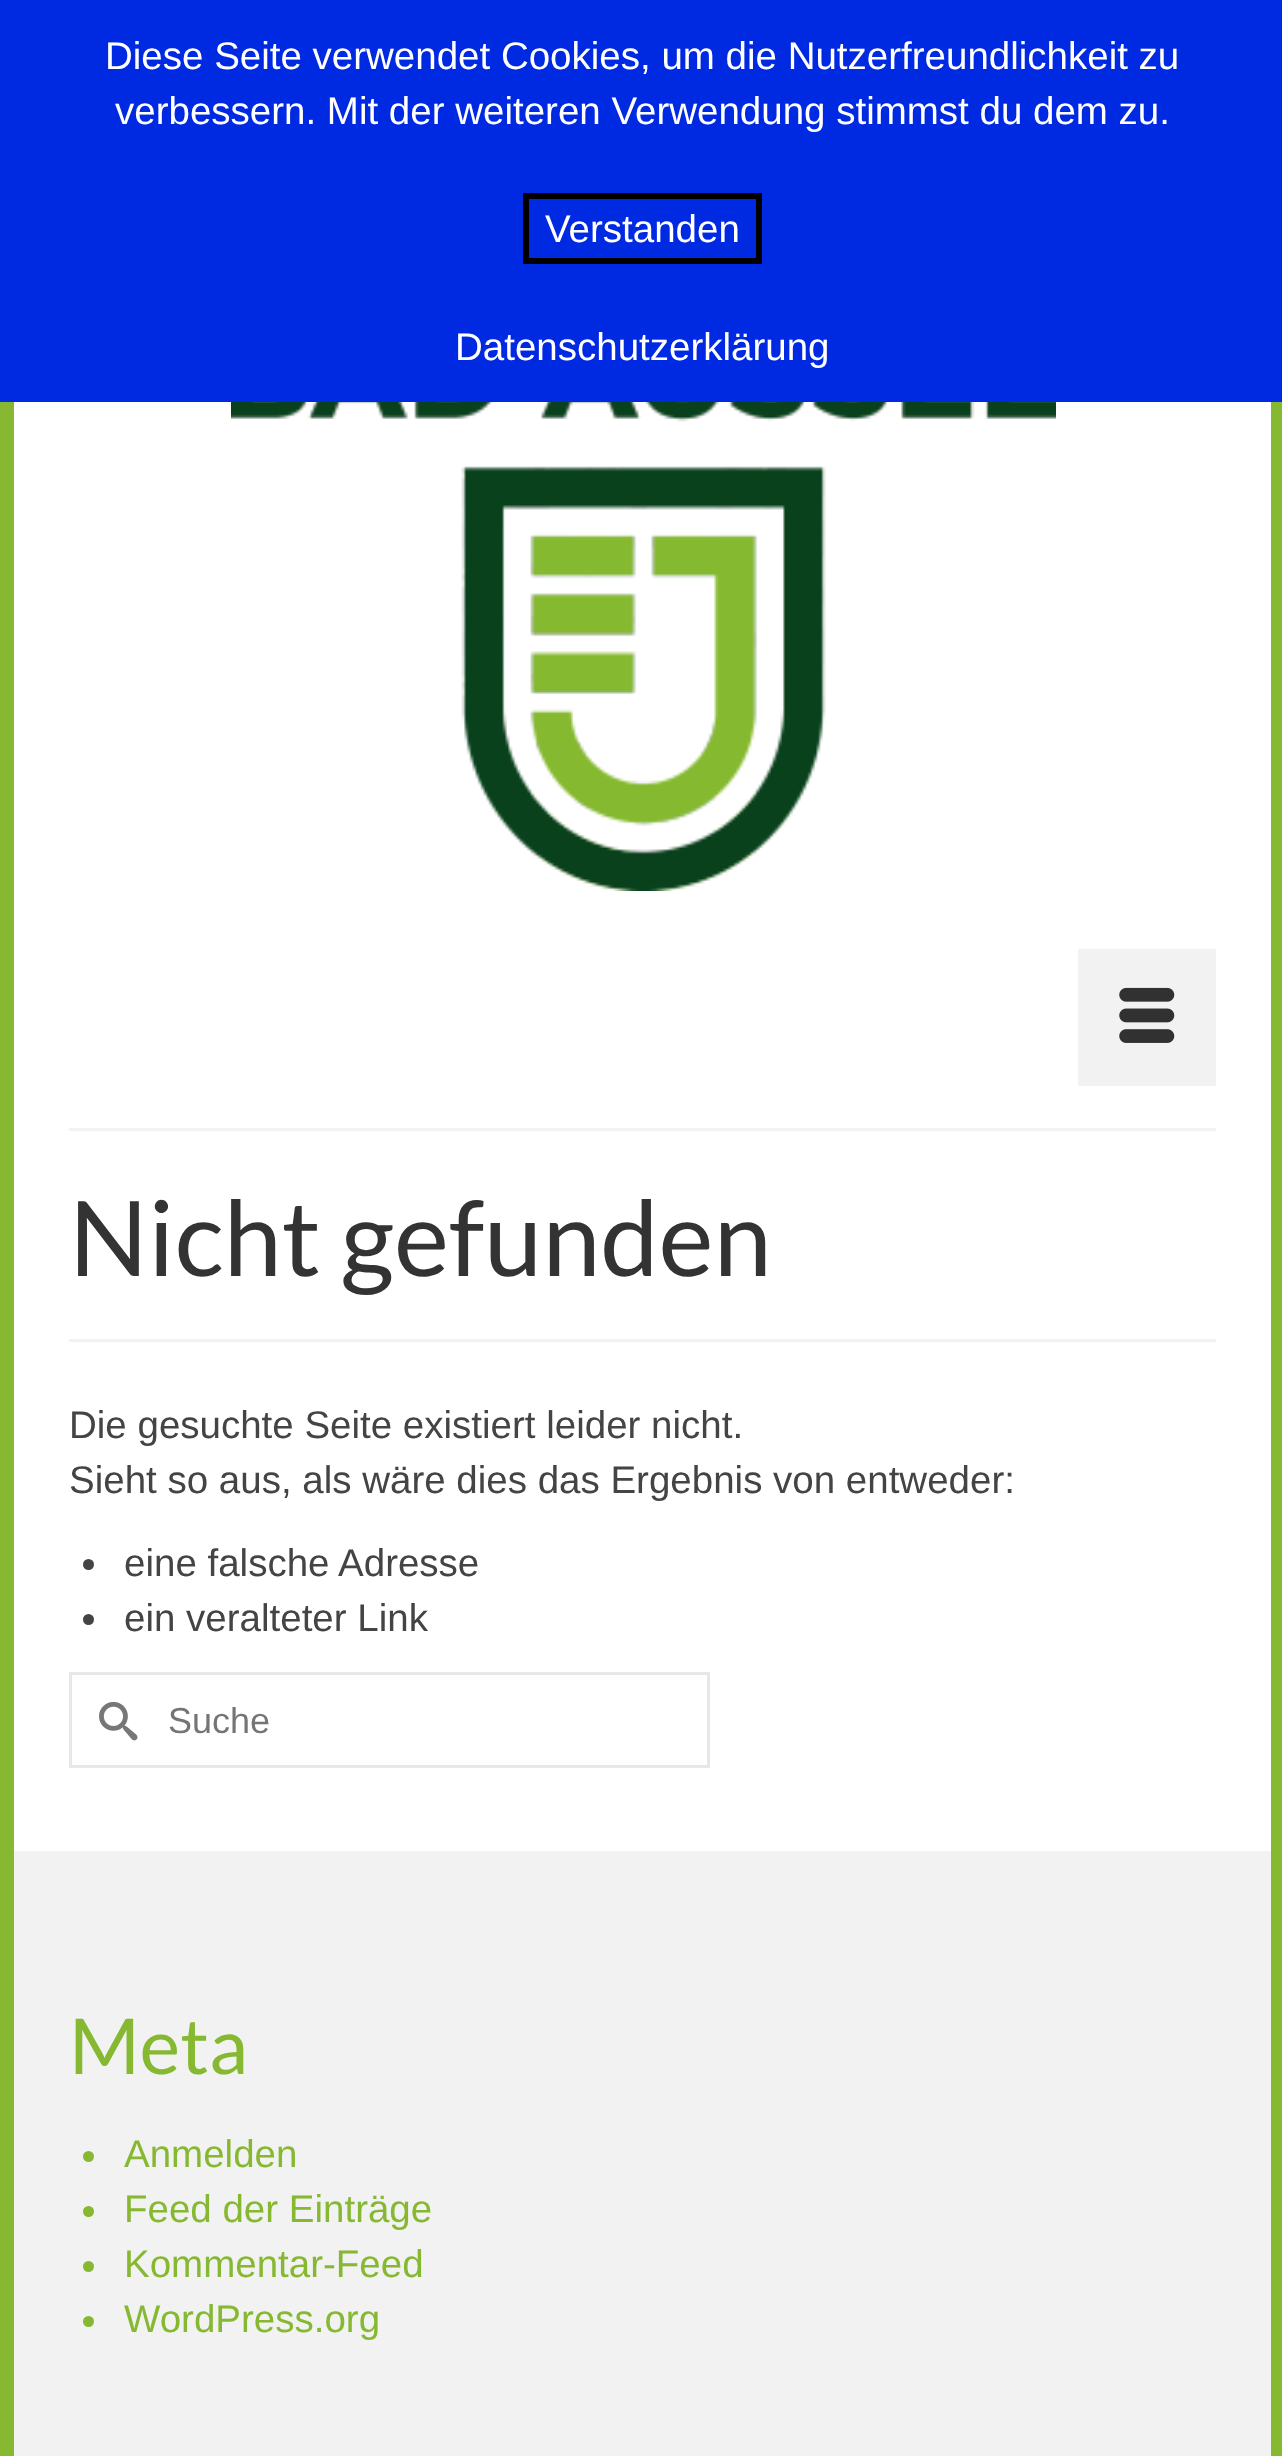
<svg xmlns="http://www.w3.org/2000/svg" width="1282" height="2456">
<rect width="100%" height="100%" fill="#86b931"/>
<rect width="1282" height="402" fill="#0029e2"/>
<text x="105" y="69" style="font-family:Liberation Sans;font-size:38.5px;fill:#fff">Diese Seite verwendet Cookies, um die Nutzerfreundlichkeit zu</text>
<text x="115" y="124" style="font-family:Liberation Sans;font-size:38.5px;fill:#fff">verbessern. Mit der weiteren Verwendung stimmst du dem zu.</text>
<rect x="526" y="196" width="233" height="65" fill="none" stroke="#000" stroke-width="6"/>
<text x="545" y="242" style="font-family:Liberation Sans;font-size:38.5px;fill:#fff">Verstanden</text>
<text x="455" y="360" style="font-family:Liberation Sans;font-size:38.5px;fill:#fff">Datenschutzerklärung</text>
<rect x="14" y="402" width="1257" height="1449" fill="#fff"/>
<image x="231" y="402" width="825" height="489" href="media/1.png"/>
<rect x="1078" y="949" width="138" height="137" fill="#f2f2f2"/>
<image x="1119" y="987" width="56" height="56" href="media/2.png"/>
<rect x="69" y="1128" width="1147" height="3" fill="#f2f2f2"/>
<rect x="69" y="1339" width="1147" height="3" fill="#f2f2f2"/>
<text x="69" y="1276" style="font-family:Lato;font-size:104.5px;fill:#333">Nicht gefunden</text>
<text x="69" y="1438" style="font-family:Liberation Sans;font-size:38.5px;fill:#444">Die gesuchte Seite existiert leider nicht.</text>
<text x="69" y="1493" style="font-family:Liberation Sans;font-size:38.5px;fill:#444">Sieht so aus, als wäre dies das Ergebnis von entweder:</text>
<circle cx="88.5" cy="1564.5" r="5.5" fill="#444"/>
<text x="124" y="1576" style="font-family:Liberation Sans;font-size:38.5px;fill:#444">eine falsche Adresse</text>
<circle cx="88.5" cy="1619.5" r="5.5" fill="#444"/>
<text x="124" y="1631" style="font-family:Liberation Sans;font-size:38.5px;fill:#444">ein veralteter Link</text>
<rect x="70.5" y="1673.5" width="638" height="93" fill="none" stroke="#e7e7e7" stroke-width="3"/>
<image x="99" y="1701" width="39" height="40" href="media/3.png"/>
<text x="168" y="1733" style="font-family:Liberation Sans;font-size:36px;fill:#757575">Suche</text>
<rect x="14" y="1851" width="1257" height="605" fill="#f2f2f2"/>
<text x="69" y="2074" style="font-family:Lato;font-size:77px;fill:#86b931">Meta</text>
<circle cx="88.5" cy="2156.5" r="5.5" fill="#86b931"/>
<text x="124" y="2167" style="font-family:Liberation Sans;font-size:38.5px;fill:#86b931">Anmelden</text>
<circle cx="88.5" cy="2211.5" r="5.5" fill="#86b931"/>
<text x="124" y="2222" style="font-family:Liberation Sans;font-size:38.5px;fill:#86b931">Feed der Einträge</text>
<circle cx="88.5" cy="2266.5" r="5.5" fill="#86b931"/>
<text x="124" y="2277" style="font-family:Liberation Sans;font-size:38.5px;fill:#86b931">Kommentar-Feed</text>
<circle cx="88.5" cy="2321.5" r="5.5" fill="#86b931"/>
<text x="124" y="2332" style="font-family:Liberation Sans;font-size:38.5px;fill:#86b931">WordPress.org</text>
</svg>
